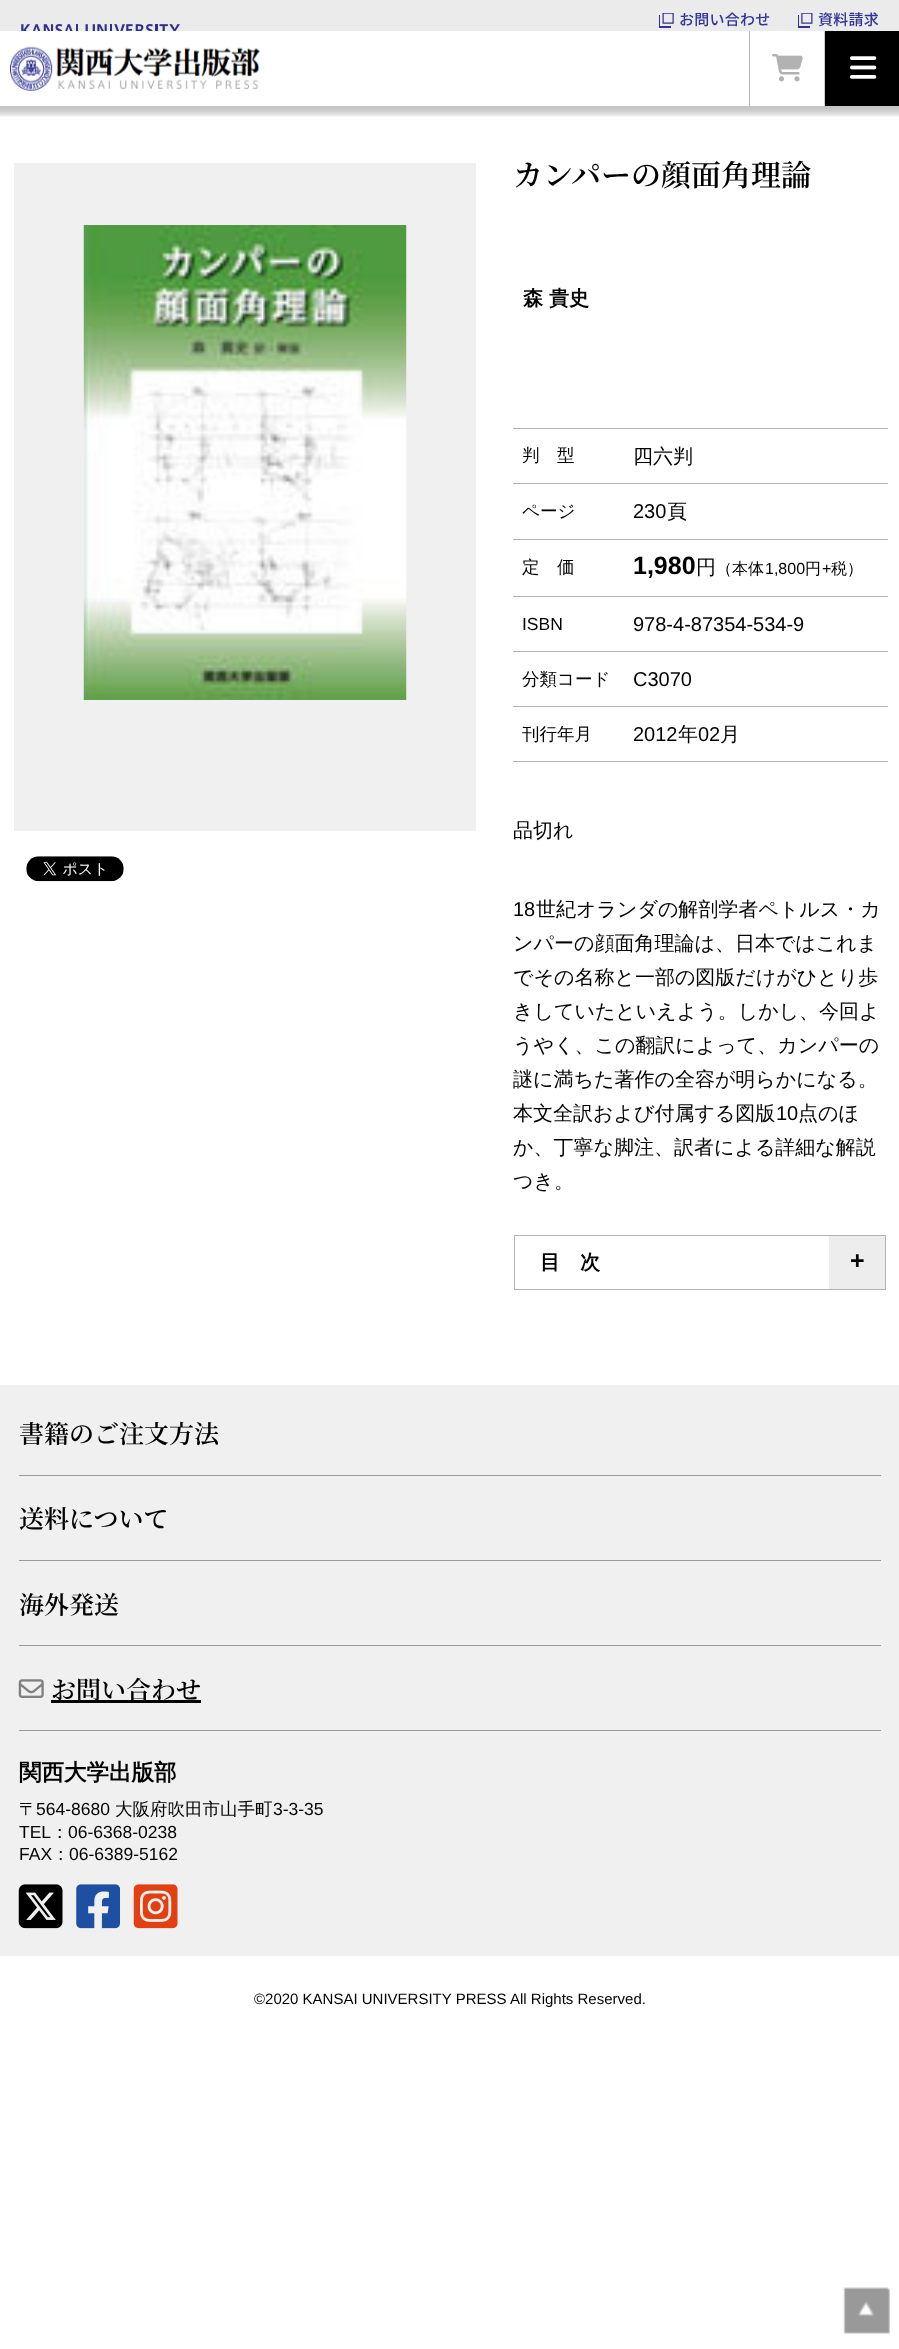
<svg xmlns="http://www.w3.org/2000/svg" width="899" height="2349">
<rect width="100%" height="100%" fill="#fff"/>
<rect width="899" height="31" fill="#ebebeb"/>
<image x="21" y="24" width="159" height="7" href="media/1.png"/>
<image x="659" y="13" width="15" height="15" href="media/2.png"/>
<text x="679" y="25" style="font-family:Noto Sans JP;font-size:15px;font-weight:100;letter-spacing:0.25px;fill:#313198">お問い合わせ</text>
<image x="798" y="13" width="15" height="15" href="media/3.png"/>
<text x="818" y="25" style="font-family:Noto Sans JP;font-size:15px;font-weight:100;letter-spacing:0.25px;fill:#313198">資料請求</text>
<image x="10" y="46" width="250" height="45" href="media/4.png"/>
<rect x="749" y="31" width="1" height="75" fill="#b2b2b2"/>
<image x="772" y="53" width="31" height="29" href="media/5.png"/>
<rect x="825" y="31" width="74" height="75" fill="#000"/>
<rect x="824" y="31" width="1" height="75" fill="#ccc"/>
<image x="850" y="56" width="27" height="23" href="media/6.png"/>
<image x="0" y="106" width="899" height="11" href="media/7.png"/>
<rect x="14" y="163" width="462" height="668" fill="#f0f0f0"/>
<image x="83" y="225" width="324" height="475" href="media/8.png"/>
<image x="26" y="856" width="98" height="26" href="media/9.png"/>
<text x="513" y="186" style="font-family:Noto Serif JP;font-size:30px;font-weight:600;fill:#000">カンパーの顔面角理論</text>
<rect x="513" y="428" width="375" height="1" fill="#b2b2b2"/>
<text x="523" y="305" style="font-family:WenQuanYi Zen Hei;font-size:20px;font-weight:bold;fill:#000">森 貴史</text>
<rect x="513" y="483" width="375" height="1" fill="#b2b2b2"/>
<text x="522" y="461" style="font-family:WenQuanYi Zen Hei;font-size:17.5px;font-weight:500;fill:#000">判　型</text>
<text x="633" y="463" style="font-family:WenQuanYi Zen Hei;font-size:20px;font-weight:500;fill:#000">四六判</text>
<rect x="513" y="539" width="375" height="1" fill="#b2b2b2"/>
<text x="522" y="517" style="font-family:WenQuanYi Zen Hei;font-size:17.5px;font-weight:500;fill:#000">ページ</text>
<text x="633" y="518" style="font-family:Liberation Sans;font-size:20px;fill:#000">230</text>
<text x="667" y="518" style="font-family:WenQuanYi Zen Hei;font-size:20px;font-weight:500;fill:#000">頁</text>
<rect x="513" y="596" width="375" height="1" fill="#b2b2b2"/>
<text x="522" y="573" style="font-family:WenQuanYi Zen Hei;font-size:17.5px;font-weight:500;fill:#000">定　価</text>
<text x="633" y="574" style="font-family:Liberation Sans;font-size:25px;font-weight:bold;fill:#000">1,980</text>
<text x="696" y="574" style="font-family:WenQuanYi Zen Hei;font-size:20px;font-weight:500;fill:#000">円</text>
<text x="716" y="574" style="font-family:WenQuanYi Zen Hei;font-size:16px;font-weight:500;fill:#000">（本体</text>
<text x="765" y="574" style="font-family:Liberation Sans;font-size:16px;fill:#000">1,800</text>
<text x="805" y="574" style="font-family:WenQuanYi Zen Hei;font-size:16px;font-weight:500;fill:#000">円</text>
<text x="822" y="574" style="font-family:Liberation Sans;font-size:16px;fill:#000">+</text>
<text x="831" y="574" style="font-family:WenQuanYi Zen Hei;font-size:16px;font-weight:500;fill:#000">税）</text>
<rect x="513" y="651" width="375" height="1" fill="#b2b2b2"/>
<text x="522" y="630" style="font-family:Liberation Sans;font-size:17.5px;fill:#000">ISBN</text>
<text x="633" y="631" style="font-family:Liberation Sans;font-size:20px;fill:#000">978-4-87354-534-9</text>
<rect x="513" y="706" width="375" height="1" fill="#b2b2b2"/>
<text x="522" y="685" style="font-family:WenQuanYi Zen Hei;font-size:17.5px;font-weight:500;fill:#000">分類コード</text>
<text x="633" y="686" style="font-family:Liberation Sans;font-size:20px;fill:#000">C3070</text>
<rect x="513" y="761" width="375" height="1" fill="#b2b2b2"/>
<text x="522" y="740" style="font-family:WenQuanYi Zen Hei;font-size:17.5px;font-weight:500;fill:#000">刊行年月</text>
<text x="633" y="741" style="font-family:Liberation Sans;font-size:20px;fill:#000">2012</text>
<text x="678" y="741" style="font-family:WenQuanYi Zen Hei;font-size:20px;font-weight:500;fill:#000">年</text>
<text x="698" y="741" style="font-family:Liberation Sans;font-size:20px;fill:#000">02</text>
<text x="720" y="741" style="font-family:WenQuanYi Zen Hei;font-size:20px;font-weight:500;fill:#000">月</text>
<text x="513" y="837" style="font-family:WenQuanYi Zen Hei;font-size:20px;font-weight:500;fill:#000">品切れ</text>
<text x="513" y="916" style="font-family:Liberation Sans;font-size:20px;fill:#000">18</text>
<text x="536" y="916" style="font-family:WenQuanYi Zen Hei;font-size:20px;font-weight:500;fill:#000">世紀オランダの解剖学者ペトルス・カ</text>
<text x="513" y="950" style="font-family:WenQuanYi Zen Hei;font-size:20px;font-weight:500;fill:#000">ンパーの顔面角理論は、日本ではこれま</text>
<text x="513" y="984" style="font-family:WenQuanYi Zen Hei;font-size:20px;font-weight:500;fill:#000">でその名称と一部の図版だけがひとり歩</text>
<text x="513" y="1018" style="font-family:WenQuanYi Zen Hei;font-size:20px;font-weight:500;fill:#000">きしていたといえよう。しかし、今回よ</text>
<text x="513" y="1052" style="font-family:WenQuanYi Zen Hei;font-size:20px;font-weight:500;fill:#000">うやく、この翻訳によって、カンパーの</text>
<text x="513" y="1086" style="font-family:WenQuanYi Zen Hei;font-size:20px;font-weight:500;fill:#000">謎に満ちた著作の全容が明らかになる。</text>
<text x="513" y="1120" style="font-family:WenQuanYi Zen Hei;font-size:20px;font-weight:500;fill:#000">本文全訳および付属する図版</text>
<text x="776" y="1120" style="font-family:Liberation Sans;font-size:20px;fill:#000">10</text>
<text x="798" y="1120" style="font-family:WenQuanYi Zen Hei;font-size:20px;font-weight:500;fill:#000">点のほ</text>
<text x="513" y="1154" style="font-family:WenQuanYi Zen Hei;font-size:20px;font-weight:500;fill:#000">か、丁寧な脚注、訳者による詳細な解説</text>
<text x="513" y="1188" style="font-family:WenQuanYi Zen Hei;font-size:20px;font-weight:500;fill:#000">つき。</text>
<rect x="514.5" y="1235.5" width="371" height="54" fill="none" stroke="#b2b2b2"/>
<text x="540" y="1269" style="font-family:WenQuanYi Zen Hei;font-size:20px;font-weight:bold;fill:#000">目　次</text>
<rect x="829" y="1236" width="56" height="53" fill="#ededed"/>
<text x="850" y="1269" style="font-family:Liberation Sans;font-size:25px;font-weight:bold;fill:#000">+</text>
<rect y="1385" width="899" height="571" fill="#f0f0f0"/>
<rect x="19" y="1475" width="862" height="1" fill="#999"/>
<text x="19" y="1443" style="font-family:Noto Serif JP;font-size:25px;font-weight:600;fill:#000">書籍のご注文方法</text>
<rect x="19" y="1645" width="862" height="1" fill="#999"/>
<text x="19" y="1528" style="font-family:Noto Serif JP;font-size:25px;font-weight:600;fill:#000">送料について</text>
<rect x="19" y="1560" width="862" height="1" fill="#999"/>
<text x="19" y="1614" style="font-family:Noto Serif JP;font-size:25px;font-weight:600;fill:#000">海外発送</text>
<image x="18" y="1679" width="26" height="19" href="media/10.png"/>
<rect x="51" y="1700" width="150" height="3" fill="#000"/>
<text x="51" y="1699" style="font-family:Noto Serif JP;font-size:25px;font-weight:600;fill:#000">お問い合わせ</text>
<rect x="19" y="1730" width="862" height="1" fill="#999"/>
<text x="19" y="1780" style="font-family:WenQuanYi Zen Hei;font-size:22.5px;font-weight:bold;fill:#000">関西大学出版部</text>
<text x="19" y="1815" style="font-family:WenQuanYi Zen Hei;font-size:17.5px;font-weight:500;fill:#000">〒</text>
<text x="36" y="1815" style="font-family:Liberation Sans;font-size:17.5px;fill:#000">564-8680</text>
<text x="115" y="1815" style="font-family:WenQuanYi Zen Hei;font-size:17.5px;font-weight:500;fill:#000">大阪府吹田市山手町</text>
<text x="273" y="1815" style="font-family:Liberation Sans;font-size:17.5px;fill:#000">3-3-35</text>
<text x="19" y="1838" style="font-family:Liberation Sans;font-size:17.5px;fill:#000">TEL</text>
<text x="51" y="1838" style="font-family:WenQuanYi Zen Hei;font-size:17.5px;font-weight:500;fill:#000">：</text>
<text x="68" y="1838" style="font-family:Liberation Sans;font-size:17.5px;fill:#000">06-6368-0238</text>
<text x="19" y="1860" style="font-family:Liberation Sans;font-size:17.5px;fill:#000">FAX</text>
<text x="52" y="1860" style="font-family:WenQuanYi Zen Hei;font-size:17.5px;font-weight:500;fill:#000">：</text>
<text x="69" y="1860" style="font-family:Liberation Sans;font-size:17.5px;fill:#000">06-6389-5162</text>
<image x="18" y="1884" width="45" height="45" href="media/11.png"/>
<image x="76" y="1884" width="44" height="45" href="media/12.png"/>
<image x="133" y="1884" width="45" height="45" href="media/13.png"/>
<text x="254" y="2004" style="font-family:Liberation Sans;font-size:15px;fill:#000">©2020 KANSAI UNIVERSITY PRESS</text>
<text x="510" y="2004" style="font-family:Liberation Sans;font-size:15px;fill:#000">All Rights Reserved.</text>
<image x="843" y="2287" width="47" height="47" href="media/14.png"/>
</svg>
